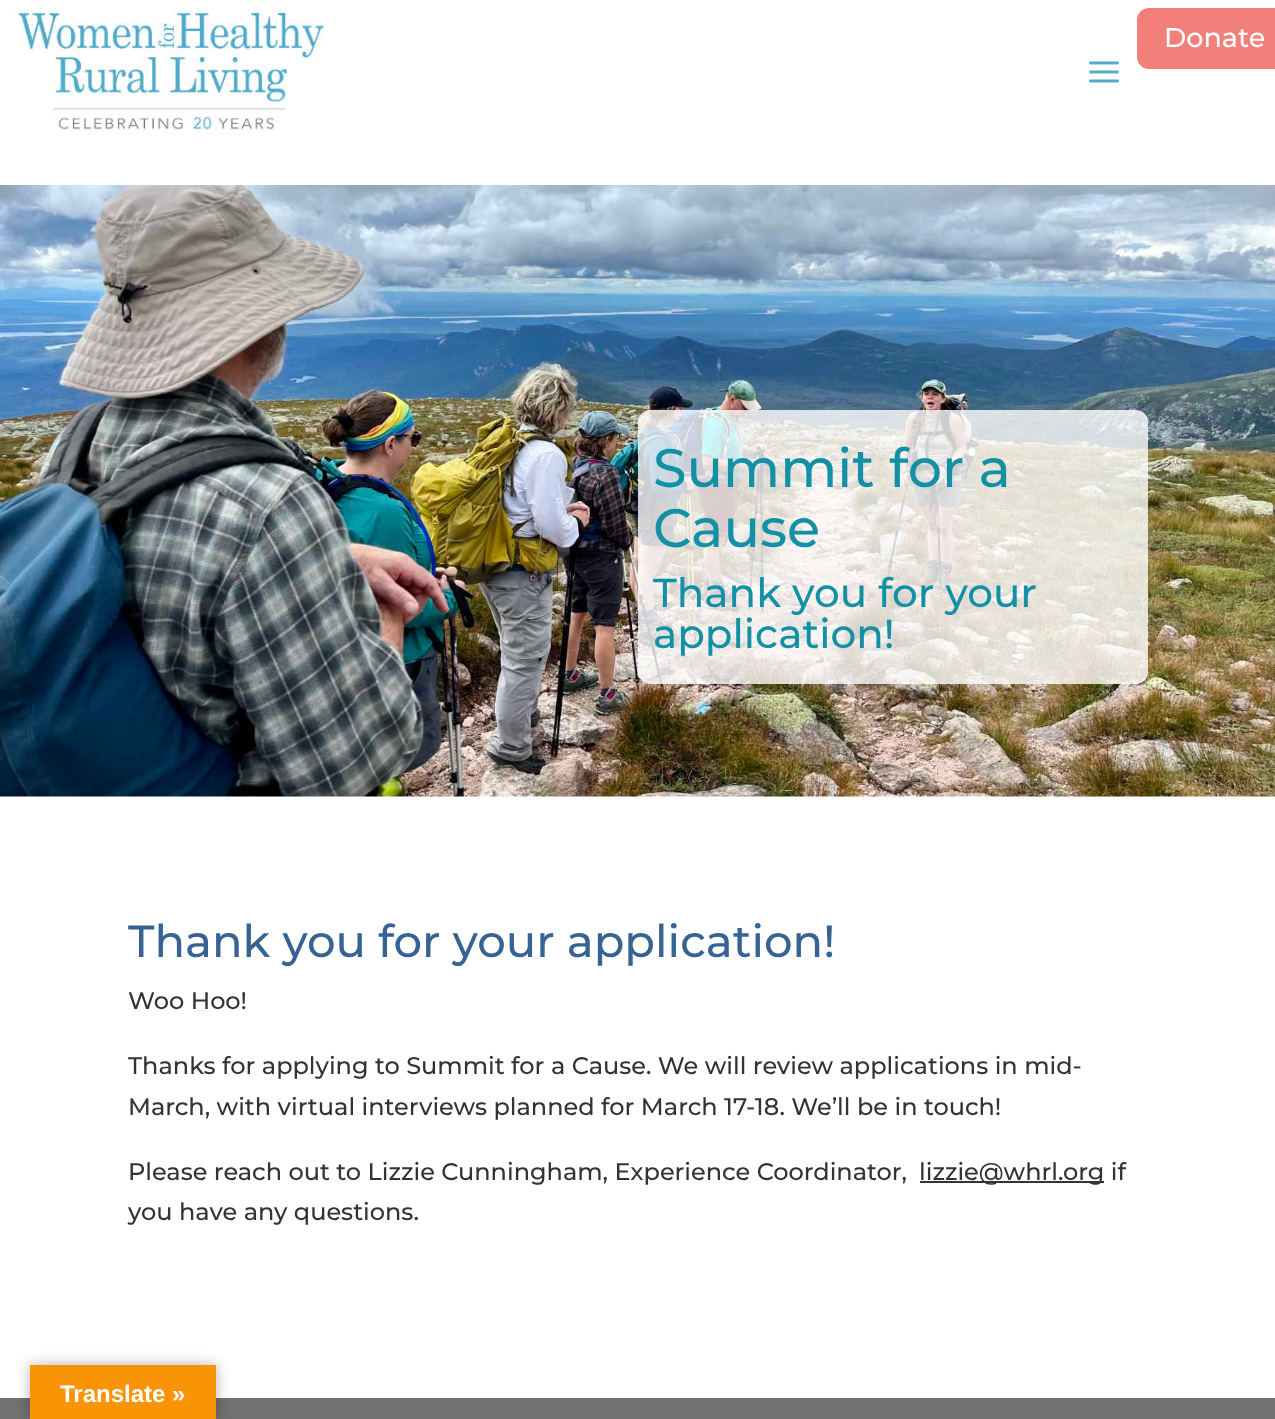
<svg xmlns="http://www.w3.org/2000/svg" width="1275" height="1419">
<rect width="100%" height="100%" fill="#fff"/>
<image x="15" y="8" width="311" height="122" href="media/1.png"/>
<image x="1089" y="61" width="30" height="22" href="media/2.png"/>
<rect x="1137" y="8" width="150" height="61" rx="12" fill="#f27f79"/>
<text x="1164" y="47" style="font-family:Montserrat;font-size:27px;font-weight:100;fill:#fff">Donate</text>
<image x="0" y="185" width="1275" height="612" href="media/3.png"/>
<rect x="638" y="410" width="510" height="274" rx="12" fill="#ffffffcc"/>
<text x="653" y="487" style="font-family:Montserrat;font-size:54px;font-weight:100;fill:#1291a6">Summit for a</text>
<text x="653" y="547" style="font-family:Montserrat;font-size:54px;font-weight:100;fill:#1291a6">Cause</text>
<text x="653" y="607" style="font-family:Montserrat;font-size:40.5px;font-weight:100;fill:#1291a6">Thank you for your</text>
<text x="653" y="648" style="font-family:Montserrat;font-size:40.5px;font-weight:100;fill:#1291a6">application!</text>
<text x="128" y="957" style="font-family:Montserrat;font-size:45px;font-weight:100;fill:#366393">Thank you for your application!</text>
<text x="128" y="1009" style="font-family:Montserrat;font-size:24px;font-weight:100;fill:#333">Woo Hoo!</text>
<text x="128" y="1074" style="font-family:Montserrat;font-size:24px;font-weight:100;fill:#333">Thanks for applying to Summit for a Cause. We will review applications in mid-</text>
<text x="128" y="1115" style="font-family:Montserrat;font-size:24px;font-weight:100;fill:#333">March, with virtual interviews planned for March 17-18. We’ll be in touch!</text>
<text x="128" y="1180" style="font-family:Montserrat;font-size:24px;font-weight:100;fill:#333">Please reach out to Lizzie Cunningham, Experience Coordinator,</text>
<rect x="920" y="1181" width="184" height="2" fill="#333"/>
<text x="919" y="1180" style="font-family:Montserrat;font-size:24px;font-weight:100;fill:#333">lizzie@whrl.org if</text>
<text x="128" y="1220" style="font-family:Montserrat;font-size:24px;font-weight:100;fill:#333">you have any questions.</text>
<rect y="1398" width="1275" height="21" fill="#717171"/>
<rect x="30" y="1365" width="186" height="54" fill="#0000004d" filter="blur(7px)"/>
<rect x="30" y="1365" width="186" height="54" fill="#f89406"/>
<text x="60" y="1402" style="font-family:Liberation Sans;font-size:24px;font-weight:bold;fill:#fff">Translate »</text>
</svg>
